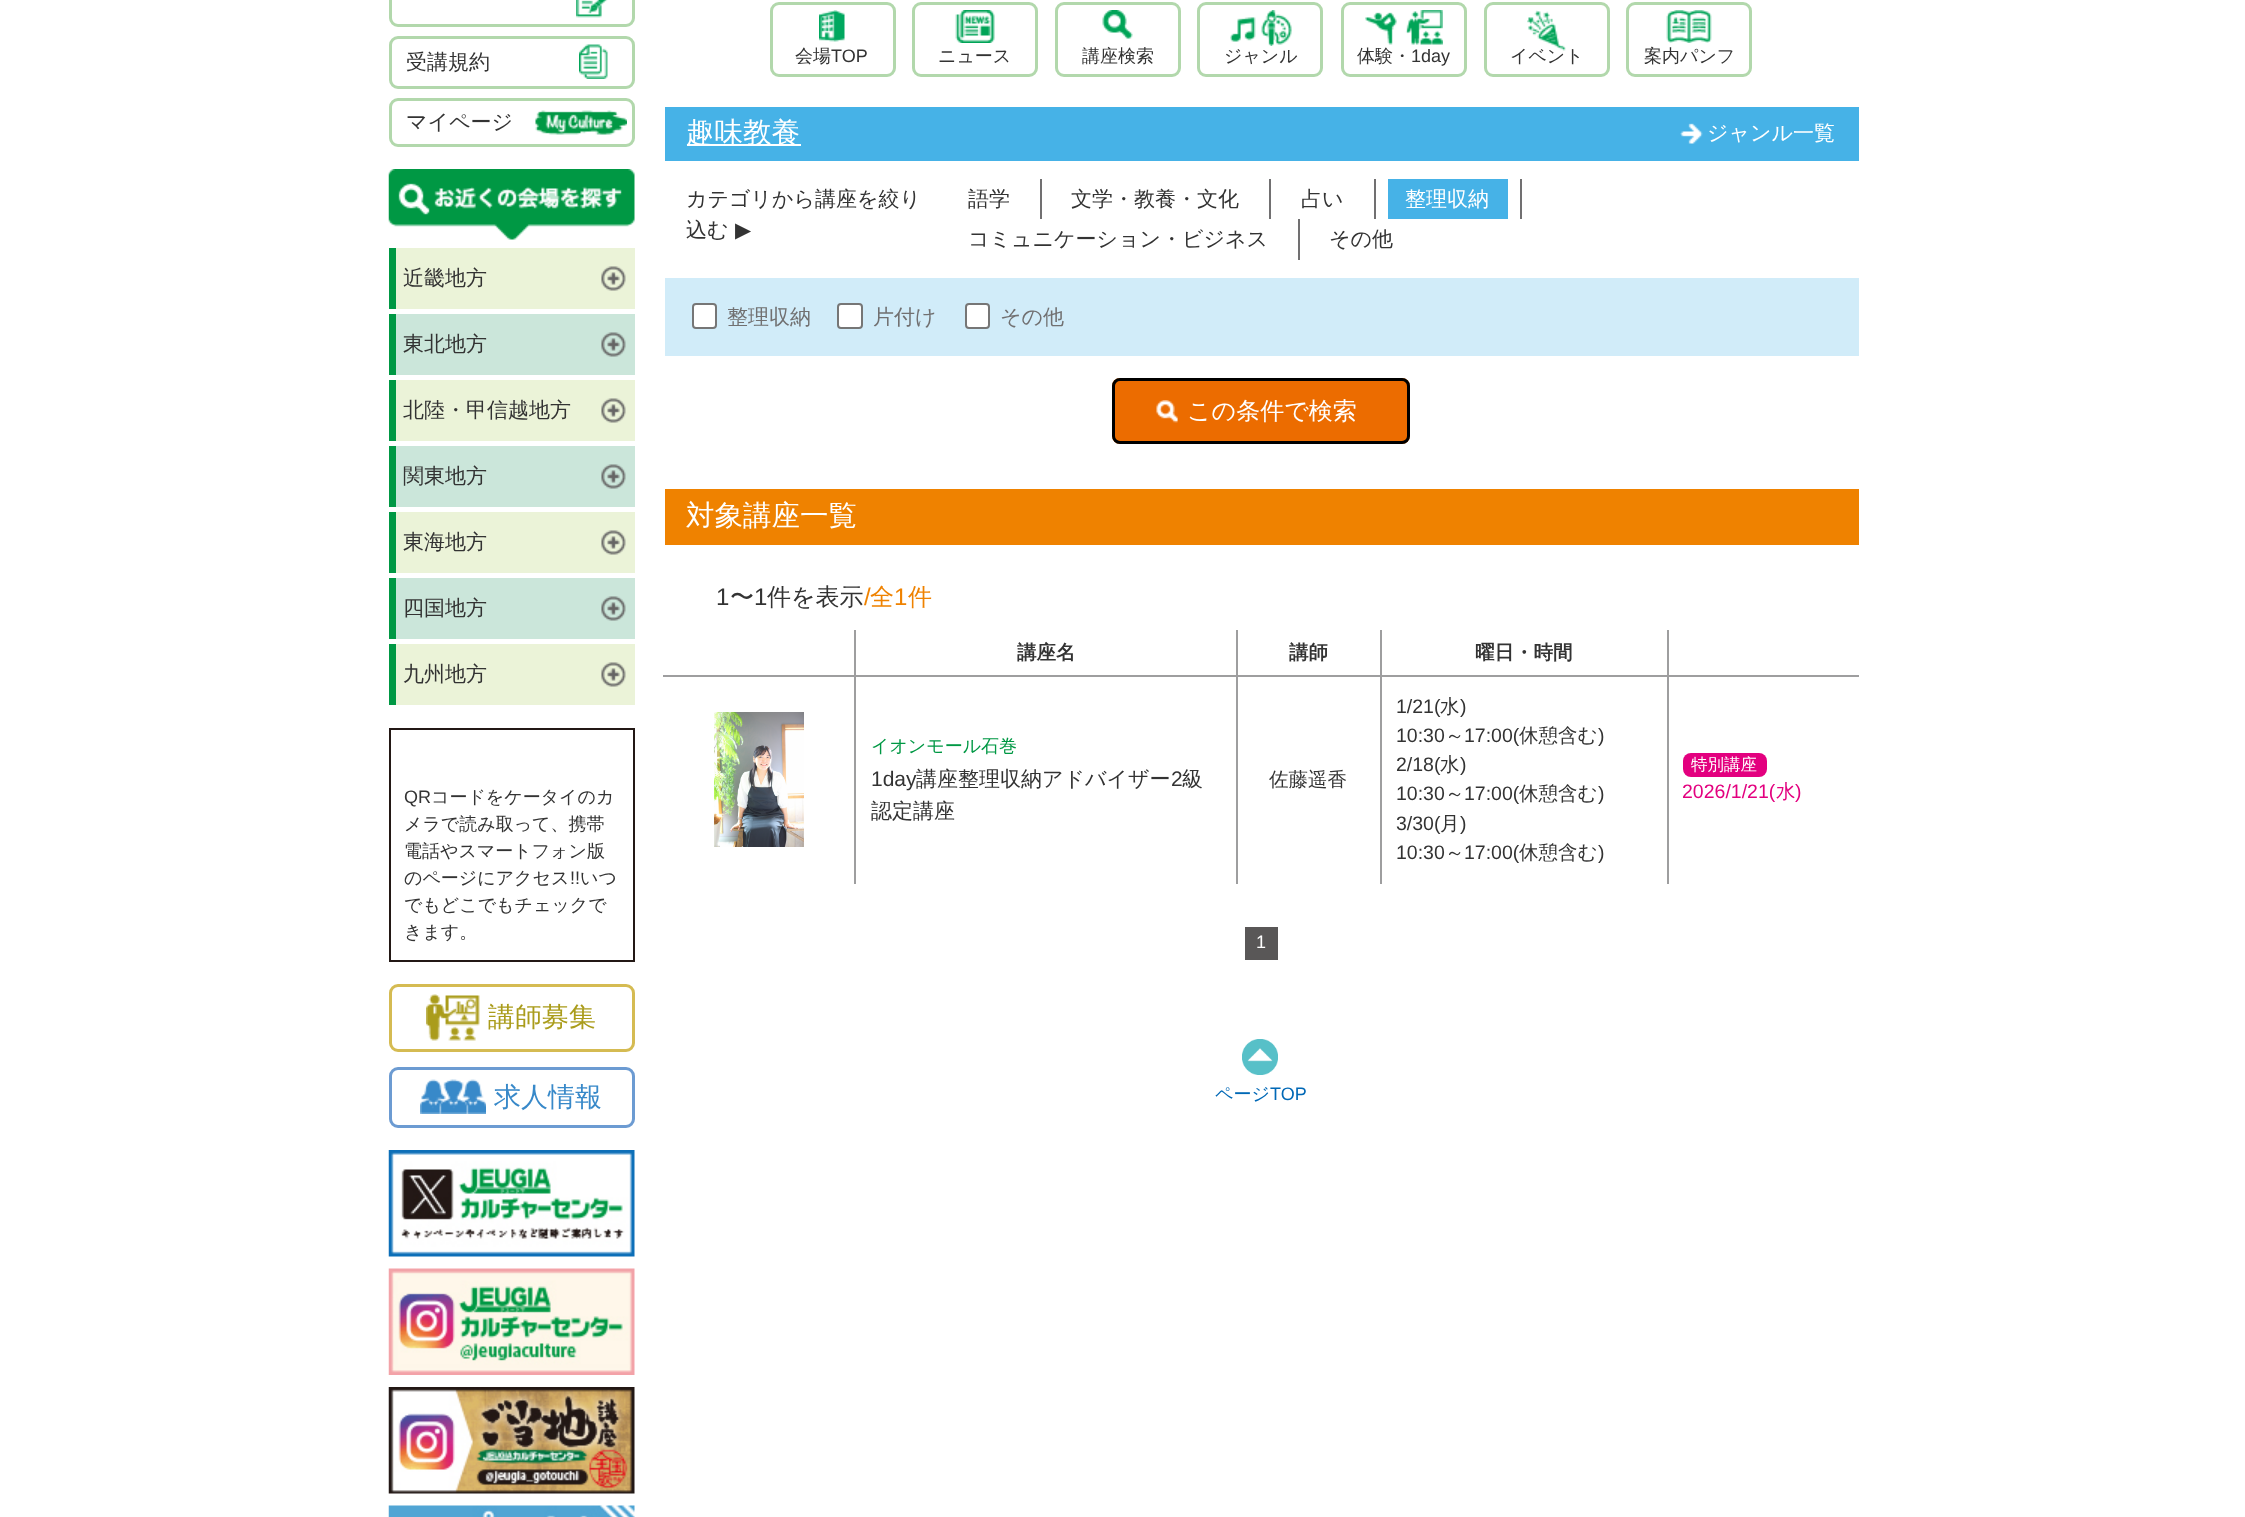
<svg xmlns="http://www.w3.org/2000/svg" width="2245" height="1517">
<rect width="100%" height="100%" fill="#fff"/>
<rect x="390.5" y="-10.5" width="243" height="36" rx="7.5" fill="none" stroke="#b2d8ac" stroke-width="3"/>
<image x="576" y="0" width="32" height="18" href="media/1.png"/>
<rect x="390.5" y="37.5" width="243" height="50" rx="7.5" fill="none" stroke="#b2d8ac" stroke-width="3"/>
<text x="406" y="69" style="font-family:WenQuanYi Zen Hei;font-size:21px;font-weight:500;fill:#333">受講規約</text>
<image x="579" y="44" width="29" height="35" href="media/2.png"/>
<rect x="390.5" y="99.5" width="243" height="46" rx="7.5" fill="none" stroke="#b2d8ac" stroke-width="3"/>
<text x="406" y="129" style="font-family:WenQuanYi Zen Hei;font-size:21px;font-weight:500;fill:#333">マイページ</text>
<image x="535" y="110" width="92" height="25" href="media/3.png"/>
<image x="388" y="169" width="247" height="71" href="media/4.png"/>
<rect x="396" y="248" width="239" height="61" fill="#ebf3d8"/>
<image x="601" y="266" width="25" height="25" href="media/5.png"/>
<rect x="389" y="248" width="7" height="61" fill="#009844"/>
<text x="403" y="285" style="font-family:WenQuanYi Zen Hei;font-size:21px;font-weight:500;fill:#333">近畿地方</text>
<rect x="396" y="314" width="239" height="61" fill="#cbe6da"/>
<image x="601" y="332" width="25" height="25" href="media/6.png"/>
<rect x="389" y="314" width="7" height="61" fill="#009844"/>
<text x="403" y="351" style="font-family:WenQuanYi Zen Hei;font-size:21px;font-weight:500;fill:#333">東北地方</text>
<rect x="396" y="380" width="239" height="61" fill="#ebf3d8"/>
<image x="601" y="398" width="25" height="25" href="media/5.png"/>
<rect x="389" y="380" width="7" height="61" fill="#009844"/>
<text x="403" y="417" style="font-family:WenQuanYi Zen Hei;font-size:21px;font-weight:500;fill:#333">北陸・甲信越地方</text>
<rect x="396" y="446" width="239" height="61" fill="#cbe6da"/>
<image x="601" y="464" width="25" height="25" href="media/6.png"/>
<rect x="389" y="446" width="7" height="61" fill="#009844"/>
<text x="403" y="483" style="font-family:WenQuanYi Zen Hei;font-size:21px;font-weight:500;fill:#333">関東地方</text>
<rect x="396" y="512" width="239" height="61" fill="#ebf3d8"/>
<image x="601" y="530" width="25" height="25" href="media/5.png"/>
<rect x="389" y="512" width="7" height="61" fill="#009844"/>
<text x="403" y="549" style="font-family:WenQuanYi Zen Hei;font-size:21px;font-weight:500;fill:#333">東海地方</text>
<rect x="396" y="578" width="239" height="61" fill="#cbe6da"/>
<image x="601" y="596" width="25" height="25" href="media/6.png"/>
<rect x="389" y="578" width="7" height="61" fill="#009844"/>
<text x="403" y="615" style="font-family:WenQuanYi Zen Hei;font-size:21px;font-weight:500;fill:#333">四国地方</text>
<rect x="396" y="644" width="239" height="61" fill="#ebf3d8"/>
<image x="601" y="662" width="25" height="25" href="media/5.png"/>
<rect x="389" y="644" width="7" height="61" fill="#009844"/>
<text x="403" y="681" style="font-family:WenQuanYi Zen Hei;font-size:21px;font-weight:500;fill:#333">九州地方</text>
<rect x="390" y="729" width="244" height="232" fill="none" stroke="#231815" stroke-width="2"/>
<text x="404" y="803" style="font-family:Liberation Sans;font-size:18px;fill:#333">QR</text>
<text x="431" y="803" style="font-family:WenQuanYi Zen Hei;font-size:18px;font-weight:500;fill:#333">コードをケータイのカ</text>
<text x="404" y="830" style="font-family:WenQuanYi Zen Hei;font-size:18px;font-weight:500;fill:#333">メラで読み取って、携帯</text>
<text x="404" y="857" style="font-family:WenQuanYi Zen Hei;font-size:18px;font-weight:500;fill:#333">電話やスマートフォン版</text>
<text x="404" y="884" style="font-family:WenQuanYi Zen Hei;font-size:18px;font-weight:500;fill:#333">のページにアクセス</text>
<text x="570" y="884" style="font-family:Liberation Sans;font-size:18px;fill:#333">!!</text>
<text x="580" y="884" style="font-family:WenQuanYi Zen Hei;font-size:18px;font-weight:500;fill:#333">いつ</text>
<text x="404" y="911" style="font-family:WenQuanYi Zen Hei;font-size:18px;font-weight:500;fill:#333">でもどこでもチェックで</text>
<text x="404" y="938" style="font-family:WenQuanYi Zen Hei;font-size:18px;font-weight:500;fill:#333">きます。</text>
<rect x="390.5" y="985.5" width="243" height="65" rx="7.5" fill="none" stroke="#d5bb52" stroke-width="3"/>
<image x="426" y="994" width="54" height="47" href="media/7.png"/>
<text x="488" y="1026" style="font-family:WenQuanYi Zen Hei;font-size:27px;font-weight:500;fill:#aa9c1b">講師募集</text>
<rect x="390.5" y="1068.5" width="243" height="58" rx="7.5" fill="none" stroke="#6c9bd2" stroke-width="3"/>
<image x="420" y="1079" width="66" height="35" href="media/8.png"/>
<text x="494" y="1106" style="font-family:WenQuanYi Zen Hei;font-size:27px;font-weight:500;fill:#3889c9">求人情報</text>
<image x="388" y="1150" width="247" height="107" href="media/9.png"/>
<image x="388" y="1268" width="247" height="107" href="media/10.png"/>
<image x="388" y="1387" width="247" height="107" href="media/11.png"/>
<image x="388" y="1505" width="247" height="12" href="media/12.png"/>
<image x="819" y="10" width="26" height="32" href="media/13.png"/>
<rect x="771.5" y="3.5" width="123" height="72" rx="7.5" fill="none" stroke="#b2d8ac" stroke-width="3"/>
<text x="795" y="62" style="font-family:WenQuanYi Zen Hei;font-size:18px;font-weight:500;fill:#333">会場</text>
<text x="831" y="62" style="font-family:Liberation Sans;font-size:18px;fill:#333">TOP</text>
<image x="955" y="10" width="40" height="33" href="media/14.png"/>
<rect x="913.5" y="3.5" width="123" height="72" rx="7.5" fill="none" stroke="#b2d8ac" stroke-width="3"/>
<text x="938" y="62" style="font-family:WenQuanYi Zen Hei;font-size:18px;font-weight:500;fill:#333">ニュース</text>
<image x="1102" y="10" width="31" height="29" href="media/15.png"/>
<rect x="1056.5" y="3.5" width="123" height="72" rx="7.5" fill="none" stroke="#b2d8ac" stroke-width="3"/>
<text x="1082" y="62" style="font-family:WenQuanYi Zen Hei;font-size:18px;font-weight:500;fill:#333">講座検索</text>
<image x="1230" y="10" width="62" height="36" href="media/16.png"/>
<rect x="1198.5" y="3.5" width="123" height="72" rx="7.5" fill="none" stroke="#b2d8ac" stroke-width="3"/>
<text x="1224" y="62" style="font-family:WenQuanYi Zen Hei;font-size:18px;font-weight:500;fill:#333">ジャンル</text>
<image x="1365" y="10" width="78" height="35" href="media/17.png"/>
<rect x="1342.5" y="3.5" width="123" height="72" rx="7.5" fill="none" stroke="#b2d8ac" stroke-width="3"/>
<text x="1357" y="62" style="font-family:WenQuanYi Zen Hei;font-size:18px;font-weight:500;fill:#333">体験・</text>
<text x="1411" y="62" style="font-family:Liberation Sans;font-size:18px;fill:#333">1day</text>
<image x="1527" y="10" width="39" height="41" href="media/18.png"/>
<rect x="1485.5" y="3.5" width="123" height="72" rx="7.5" fill="none" stroke="#b2d8ac" stroke-width="3"/>
<text x="1510" y="62" style="font-family:WenQuanYi Zen Hei;font-size:18px;font-weight:500;fill:#333">イベント</text>
<image x="1666" y="10" width="46" height="33" href="media/19.png"/>
<rect x="1627.5" y="3.5" width="123" height="72" rx="7.5" fill="none" stroke="#b2d8ac" stroke-width="3"/>
<text x="1644" y="62" style="font-family:WenQuanYi Zen Hei;font-size:18px;font-weight:500;fill:#333">案内パンフ</text>
<rect x="665" y="107" width="1194" height="54" fill="#46b2e7"/>
<rect x="687" y="144" width="114" height="2" fill="#fff"/>
<text x="686" y="142" style="font-family:WenQuanYi Zen Hei;font-size:28.5px;font-weight:500;fill:#fff">趣味教養</text>
<image x="1680" y="123" width="23" height="21" href="media/20.png"/>
<text x="1707" y="140" style="font-family:WenQuanYi Zen Hei;font-size:21px;font-weight:500;fill:#fff">ジャンル一覧</text>
<text x="686" y="206" style="font-family:WenQuanYi Zen Hei;font-size:21px;font-weight:500;fill:#333">カテゴリから講座を絞り</text>
<text x="686" y="237" style="font-family:WenQuanYi Zen Hei;font-size:21px;font-weight:500;fill:#333">込む</text>
<text x="735" y="237" style="font-family:DejaVu Sans;font-size:21px;fill:#333">▶︎</text>
<rect x="1040" y="179" width="2" height="40" fill="#717071"/>
<text x="968" y="206" style="font-family:WenQuanYi Zen Hei;font-size:21px;font-weight:500;fill:#333">語学</text>
<rect x="1269" y="179" width="2" height="40" fill="#717071"/>
<text x="1071" y="206" style="font-family:WenQuanYi Zen Hei;font-size:21px;font-weight:500;fill:#333">文学・教養・文化</text>
<rect x="1374" y="179" width="2" height="40" fill="#717071"/>
<text x="1301" y="206" style="font-family:WenQuanYi Zen Hei;font-size:21px;font-weight:500;fill:#333">占い</text>
<rect x="1520" y="179" width="2" height="40" fill="#717071"/>
<rect x="1388" y="179" width="120" height="40" fill="#46b2e7"/>
<text x="1405" y="206" style="font-family:WenQuanYi Zen Hei;font-size:21px;font-weight:500;fill:#fff">整理収納</text>
<rect x="1298" y="219" width="2" height="41" fill="#717071"/>
<text x="968" y="246" style="font-family:WenQuanYi Zen Hei;font-size:21px;font-weight:500;fill:#333">コミュニケーション・ビジネス</text>
<text x="1329" y="246" style="font-family:WenQuanYi Zen Hei;font-size:21px;font-weight:500;fill:#333">その他</text>
<rect x="665" y="278" width="1194" height="78" fill="#d1ecf9"/>
<rect x="693" y="304" width="23" height="24" rx="3" fill="#fff" stroke="#767676" stroke-width="2"/>
<text x="727" y="324" style="font-family:WenQuanYi Zen Hei;font-size:21px;font-weight:500;fill:#717071">整理収納</text>
<rect x="838" y="304" width="24" height="24" rx="3" fill="#fff" stroke="#767676" stroke-width="2"/>
<text x="873" y="324" style="font-family:WenQuanYi Zen Hei;font-size:21px;font-weight:500;fill:#717071">片付け</text>
<rect x="966" y="304" width="23" height="24" rx="3" fill="#fff" stroke="#767676" stroke-width="2"/>
<text x="1000" y="324" style="font-family:WenQuanYi Zen Hei;font-size:21px;font-weight:500;fill:#717071">その他</text>
<rect x="1112" y="378" width="298" height="66" rx="8" fill="#ec6c00"/>
<image x="1156" y="400" width="22" height="23" href="media/21.png"/>
<rect x="1113.5" y="379.5" width="295" height="63" rx="6.5" fill="none" stroke="#000" stroke-width="3"/>
<text x="1187" y="419" style="font-family:WenQuanYi Zen Hei;font-size:24px;font-weight:500;fill:#fff">この条件で検索</text>
<rect x="665" y="489" width="1194" height="56" fill="#ef8200"/>
<text x="686" y="525" style="font-family:WenQuanYi Zen Hei;font-size:28.5px;font-weight:500;fill:#fff">対象講座一覧</text>
<text x="716" y="605" style="font-family:Liberation Sans;font-size:24px;fill:#333">1</text>
<text x="730" y="605" style="font-family:WenQuanYi Zen Hei;font-size:24px;font-weight:500;fill:#333">〜</text>
<text x="754" y="605" style="font-family:Liberation Sans;font-size:24px;fill:#333">1</text>
<text x="767" y="605" style="font-family:WenQuanYi Zen Hei;font-size:24px;font-weight:500;fill:#333">件を表示</text>
<text x="864" y="605" style="font-family:Liberation Sans;font-size:24px;fill:#ef8200">/</text>
<text x="870" y="605" style="font-family:WenQuanYi Zen Hei;font-size:24px;font-weight:500;fill:#ef8200">全</text>
<text x="894" y="605" style="font-family:Liberation Sans;font-size:24px;fill:#ef8200">1</text>
<text x="908" y="605" style="font-family:WenQuanYi Zen Hei;font-size:24px;font-weight:500;fill:#ef8200">件</text>
<rect x="1667" y="675" width="2" height="209" fill="#9e9e9f"/>
<rect x="1667" y="675" width="192" height="2" fill="#9e9e9f"/>
<rect x="1667" y="630" width="2" height="47" fill="#9e9e9f"/>
<rect x="1380" y="675" width="2" height="209" fill="#9e9e9f"/>
<rect x="1380" y="675" width="288" height="2" fill="#9e9e9f"/>
<rect x="1380" y="630" width="2" height="47" fill="#9e9e9f"/>
<rect x="1236" y="675" width="2" height="209" fill="#9e9e9f"/>
<rect x="1236" y="675" width="146" height="2" fill="#9e9e9f"/>
<rect x="1236" y="630" width="2" height="47" fill="#9e9e9f"/>
<rect x="854" y="675" width="2" height="209" fill="#9e9e9f"/>
<rect x="854" y="675" width="384" height="2" fill="#9e9e9f"/>
<rect x="854" y="630" width="2" height="47" fill="#9e9e9f"/>
<text x="1017" y="659" style="font-family:WenQuanYi Zen Hei;font-size:19.5px;font-weight:bold;fill:#333">講座名</text>
<text x="1289" y="659" style="font-family:WenQuanYi Zen Hei;font-size:19.5px;font-weight:bold;fill:#333">講師</text>
<text x="1475" y="659" style="font-family:WenQuanYi Zen Hei;font-size:19.5px;font-weight:bold;fill:#333">曜日・時間</text>
<rect x="663" y="675" width="192" height="2" fill="#9e9e9f"/>
<image x="714" y="712" width="90" height="135" href="media/22.png"/>
<text x="871" y="752" style="font-family:WenQuanYi Zen Hei;font-size:18px;font-weight:500;fill:#009844">イオンモール石巻</text>
<text x="871" y="786" style="font-family:Liberation Sans;font-size:21px;fill:#333">1day</text>
<text x="916" y="786" style="font-family:WenQuanYi Zen Hei;font-size:21px;font-weight:500;fill:#333">講座整理収納アドバイザー</text>
<text x="1171" y="786" style="font-family:Liberation Sans;font-size:21px;fill:#333">2</text>
<text x="1182" y="786" style="font-family:WenQuanYi Zen Hei;font-size:21px;font-weight:500;fill:#333">級</text>
<text x="871" y="818" style="font-family:WenQuanYi Zen Hei;font-size:21px;font-weight:500;fill:#333">認定講座</text>
<text x="1269" y="786" style="font-family:WenQuanYi Zen Hei;font-size:19.5px;font-weight:500;fill:#333">佐藤遥香</text>
<text x="1396" y="713" style="font-family:Liberation Sans;font-size:19.5px;fill:#333">1/21(</text>
<text x="1440" y="713" style="font-family:WenQuanYi Zen Hei;font-size:19.5px;font-weight:500;fill:#333">水</text>
<text x="1460" y="713" style="font-family:Liberation Sans;font-size:19.5px;fill:#333">)</text>
<text x="1396" y="742" style="font-family:Liberation Sans;font-size:19.5px;fill:#333">10:30</text>
<text x="1445" y="742" style="font-family:WenQuanYi Zen Hei;font-size:19.5px;font-weight:500;fill:#333">～</text>
<text x="1464" y="742" style="font-family:Liberation Sans;font-size:19.5px;fill:#333">17:00(</text>
<text x="1519" y="742" style="font-family:WenQuanYi Zen Hei;font-size:19.5px;font-weight:500;fill:#333">休憩含む</text>
<text x="1598" y="742" style="font-family:Liberation Sans;font-size:19.5px;fill:#333">)</text>
<text x="1396" y="771" style="font-family:Liberation Sans;font-size:19.5px;fill:#333">2/18(</text>
<text x="1440" y="771" style="font-family:WenQuanYi Zen Hei;font-size:19.5px;font-weight:500;fill:#333">水</text>
<text x="1460" y="771" style="font-family:Liberation Sans;font-size:19.5px;fill:#333">)</text>
<text x="1396" y="800" style="font-family:Liberation Sans;font-size:19.5px;fill:#333">10:30</text>
<text x="1445" y="800" style="font-family:WenQuanYi Zen Hei;font-size:19.5px;font-weight:500;fill:#333">～</text>
<text x="1464" y="800" style="font-family:Liberation Sans;font-size:19.5px;fill:#333">17:00(</text>
<text x="1519" y="800" style="font-family:WenQuanYi Zen Hei;font-size:19.5px;font-weight:500;fill:#333">休憩含む</text>
<text x="1598" y="800" style="font-family:Liberation Sans;font-size:19.5px;fill:#333">)</text>
<text x="1396" y="830" style="font-family:Liberation Sans;font-size:19.5px;fill:#333">3/30(</text>
<text x="1440" y="830" style="font-family:WenQuanYi Zen Hei;font-size:19.5px;font-weight:500;fill:#333">月</text>
<text x="1460" y="830" style="font-family:Liberation Sans;font-size:19.5px;fill:#333">)</text>
<text x="1396" y="859" style="font-family:Liberation Sans;font-size:19.5px;fill:#333">10:30</text>
<text x="1445" y="859" style="font-family:WenQuanYi Zen Hei;font-size:19.5px;font-weight:500;fill:#333">～</text>
<text x="1464" y="859" style="font-family:Liberation Sans;font-size:19.5px;fill:#333">17:00(</text>
<text x="1519" y="859" style="font-family:WenQuanYi Zen Hei;font-size:19.5px;font-weight:500;fill:#333">休憩含む</text>
<text x="1598" y="859" style="font-family:Liberation Sans;font-size:19.5px;fill:#333">)</text>
<rect x="1683" y="753" width="84" height="24" rx="8" fill="#e3007f"/>
<text x="1691" y="770" style="font-family:WenQuanYi Zen Hei;font-size:16.5px;font-weight:500;fill:#fff">特別講座</text>
<text x="1682" y="798" style="font-family:Liberation Sans;font-size:19.5px;fill:#e3007f">2026/1/21(</text>
<text x="1776" y="798" style="font-family:WenQuanYi Zen Hei;font-size:19.5px;font-weight:500;fill:#e3007f">水</text>
<text x="1795" y="798" style="font-family:Liberation Sans;font-size:19.5px;fill:#e3007f">)</text>
<rect x="1245" y="927" width="33" height="33" fill="#595757"/>
<text x="1256" y="948" style="font-family:Liberation Sans;font-size:18px;fill:#fff">1</text>
<image x="1242" y="1039" width="36" height="36" href="media/23.png"/>
<text x="1215" y="1100" style="font-family:WenQuanYi Zen Hei;font-size:18px;font-weight:500;fill:#0068b6">ページ</text>
<text x="1270" y="1100" style="font-family:Liberation Sans;font-size:18px;fill:#0068b6">TOP</text>
</svg>
